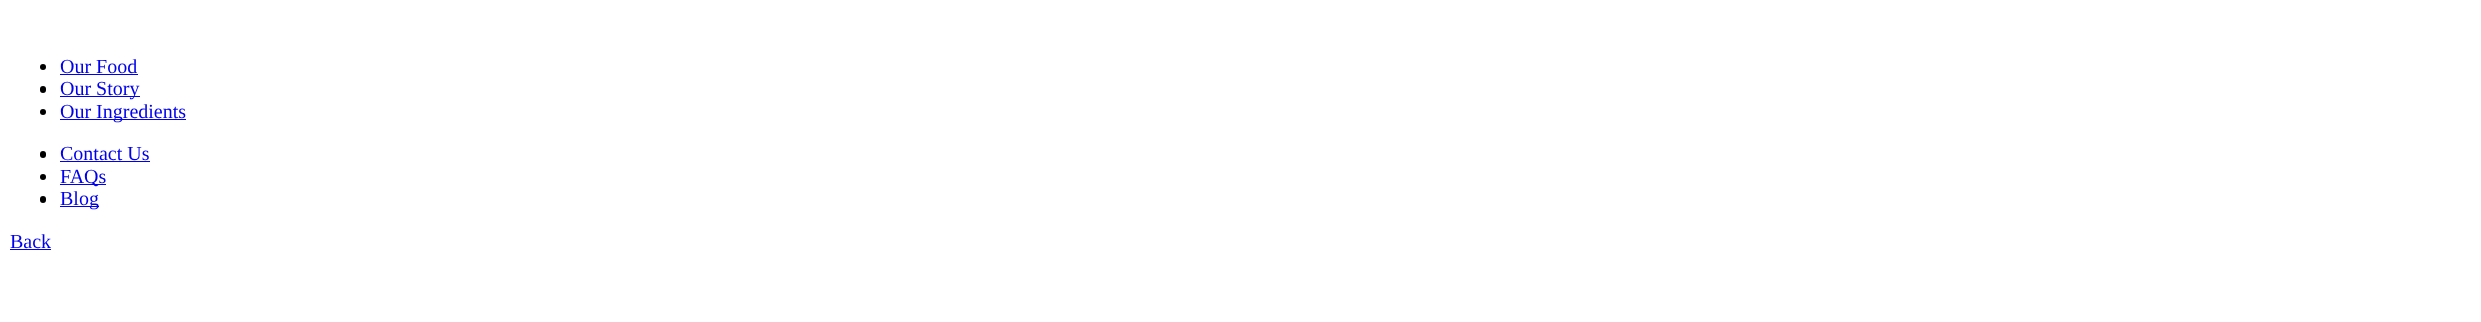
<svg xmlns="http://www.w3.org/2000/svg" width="2481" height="322">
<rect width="100%" height="100%" fill="#fff"/>
<circle cx="43" cy="67" r="3" fill="#000"/>
<text x="60" y="73" style="font-family:Liberation Serif;font-size:20px;fill:#00e">Our Food</text>
<rect x="60" y="74" width="78" height="1" fill="#00e"/>
<rect x="40" y="86" width="6" height="7" rx="3" fill="#000"/>
<rect x="60" y="96" width="80" height="1" fill="#00e"/>
<text x="60" y="95" style="font-family:Liberation Serif;font-size:20px;fill:#00e">Our Story</text>
<circle cx="43" cy="112" r="3" fill="#000"/>
<rect x="60" y="119" width="126" height="1" fill="#00e"/>
<text x="60" y="118" style="font-family:Liberation Serif;font-size:20px;fill:#00e">Our Ingredients</text>
<rect x="40" y="151" width="6" height="7" rx="3" fill="#000"/>
<text x="60" y="160" style="font-family:Liberation Serif;font-size:20px;fill:#00e">Contact Us</text>
<rect x="60" y="161" width="90" height="1" fill="#00e"/>
<circle cx="43" cy="177" r="3" fill="#000"/>
<rect x="60" y="184" width="46" height="1" fill="#00e"/>
<text x="60" y="183" style="font-family:Liberation Serif;font-size:20px;fill:#00e">FAQs</text>
<rect x="40" y="196" width="6" height="7" rx="3" fill="#000"/>
<rect x="60" y="206" width="39" height="1" fill="#00e"/>
<text x="60" y="205" style="font-family:Liberation Serif;font-size:20px;fill:#00e">Blog</text>
<text x="10" y="248" style="font-family:Liberation Serif;font-size:20px;fill:#00e">Back</text>
<rect x="10" y="249" width="41" height="1" fill="#00e"/>
</svg>
